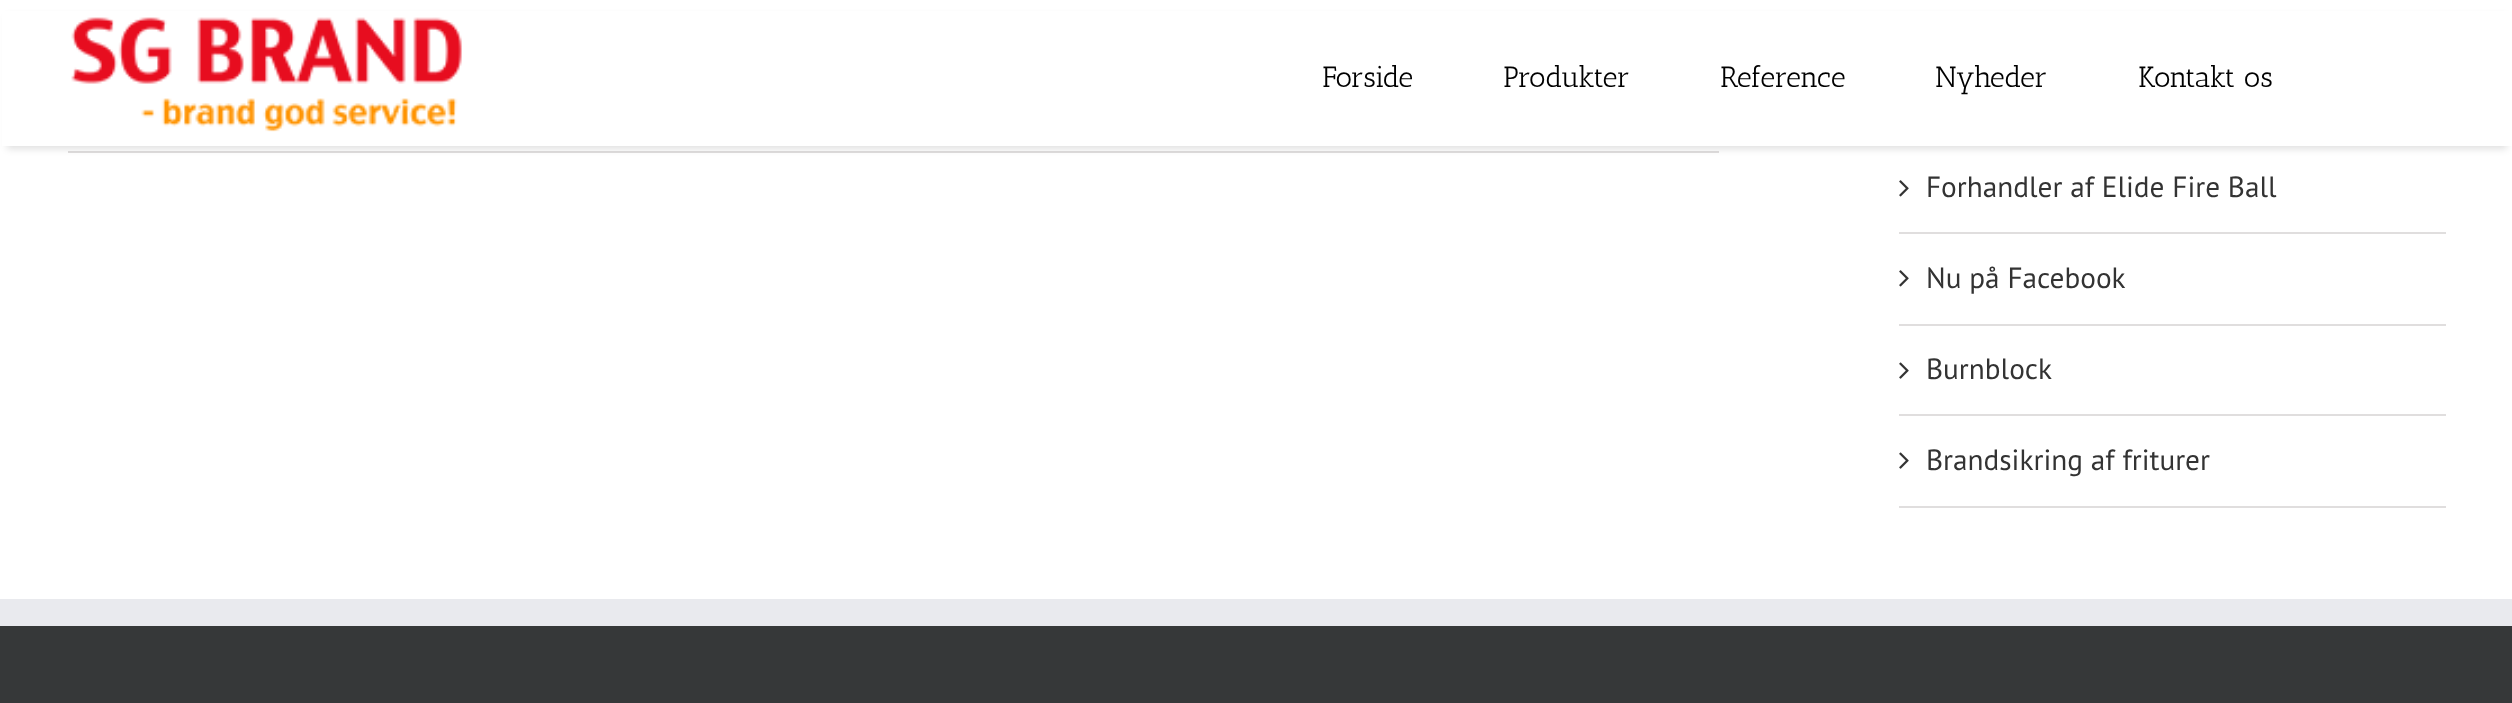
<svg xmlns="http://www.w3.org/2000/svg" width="2512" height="703">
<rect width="100%" height="100%" fill="#fff"/>
<rect x="68" y="151" width="1651" height="2" fill="#e0dede"/>
<rect x="7" y="16" width="2500" height="133" fill="#0000001f" filter="blur(3.5px)"/>
<rect x="2" y="11" width="2510" height="135" fill="#fff"/>
<image x="71" y="17" width="391" height="115" href="media/1.png"/>
<text x="1322" y="87" style="font-family:Antic Slab;font-size:29.25px;fill:#000">Forside</text>
<text x="1503" y="87" style="font-family:Antic Slab;font-size:29.25px;fill:#000">Produkter</text>
<text x="1720" y="87" style="font-family:Antic Slab;font-size:29.25px;fill:#000">Reference</text>
<text x="1935" y="87" style="font-family:Antic Slab;font-size:29.25px;fill:#000">Nyheder</text>
<text x="2138" y="87" style="font-family:Antic Slab;font-size:29.25px;fill:#000">Kontakt os</text>
<rect x="1899" y="232" width="547" height="2" fill="#e0dede"/>
<image x="1899" y="180" width="10" height="17" href="media/2.png"/>
<text x="1926" y="197" style="font-family:PT Sans;font-size:29.25px;fill:#333">Forhandler af Elide Fire Ball</text>
<rect x="1899" y="324" width="547" height="2" fill="#e0dede"/>
<image x="1899" y="270" width="10" height="17" href="media/2.png"/>
<text x="1926" y="288" style="font-family:PT Sans;font-size:29.25px;fill:#333">Nu på Facebook</text>
<rect x="1899" y="414" width="547" height="2" fill="#e0dede"/>
<image x="1899" y="362" width="10" height="17" href="media/3.png"/>
<text x="1926" y="379" style="font-family:PT Sans;font-size:29.25px;fill:#333">Burnblock</text>
<rect x="1899" y="506" width="547" height="2" fill="#e0dede"/>
<image x="1899" y="452" width="10" height="17" href="media/3.png"/>
<text x="1926" y="470" style="font-family:PT Sans;font-size:29.25px;fill:#333">Brandsikring af friturer</text>
<rect y="626" width="2512" height="77" fill="#363839"/>
<rect y="599" width="2512" height="27" fill="#e9eaee"/>
</svg>
